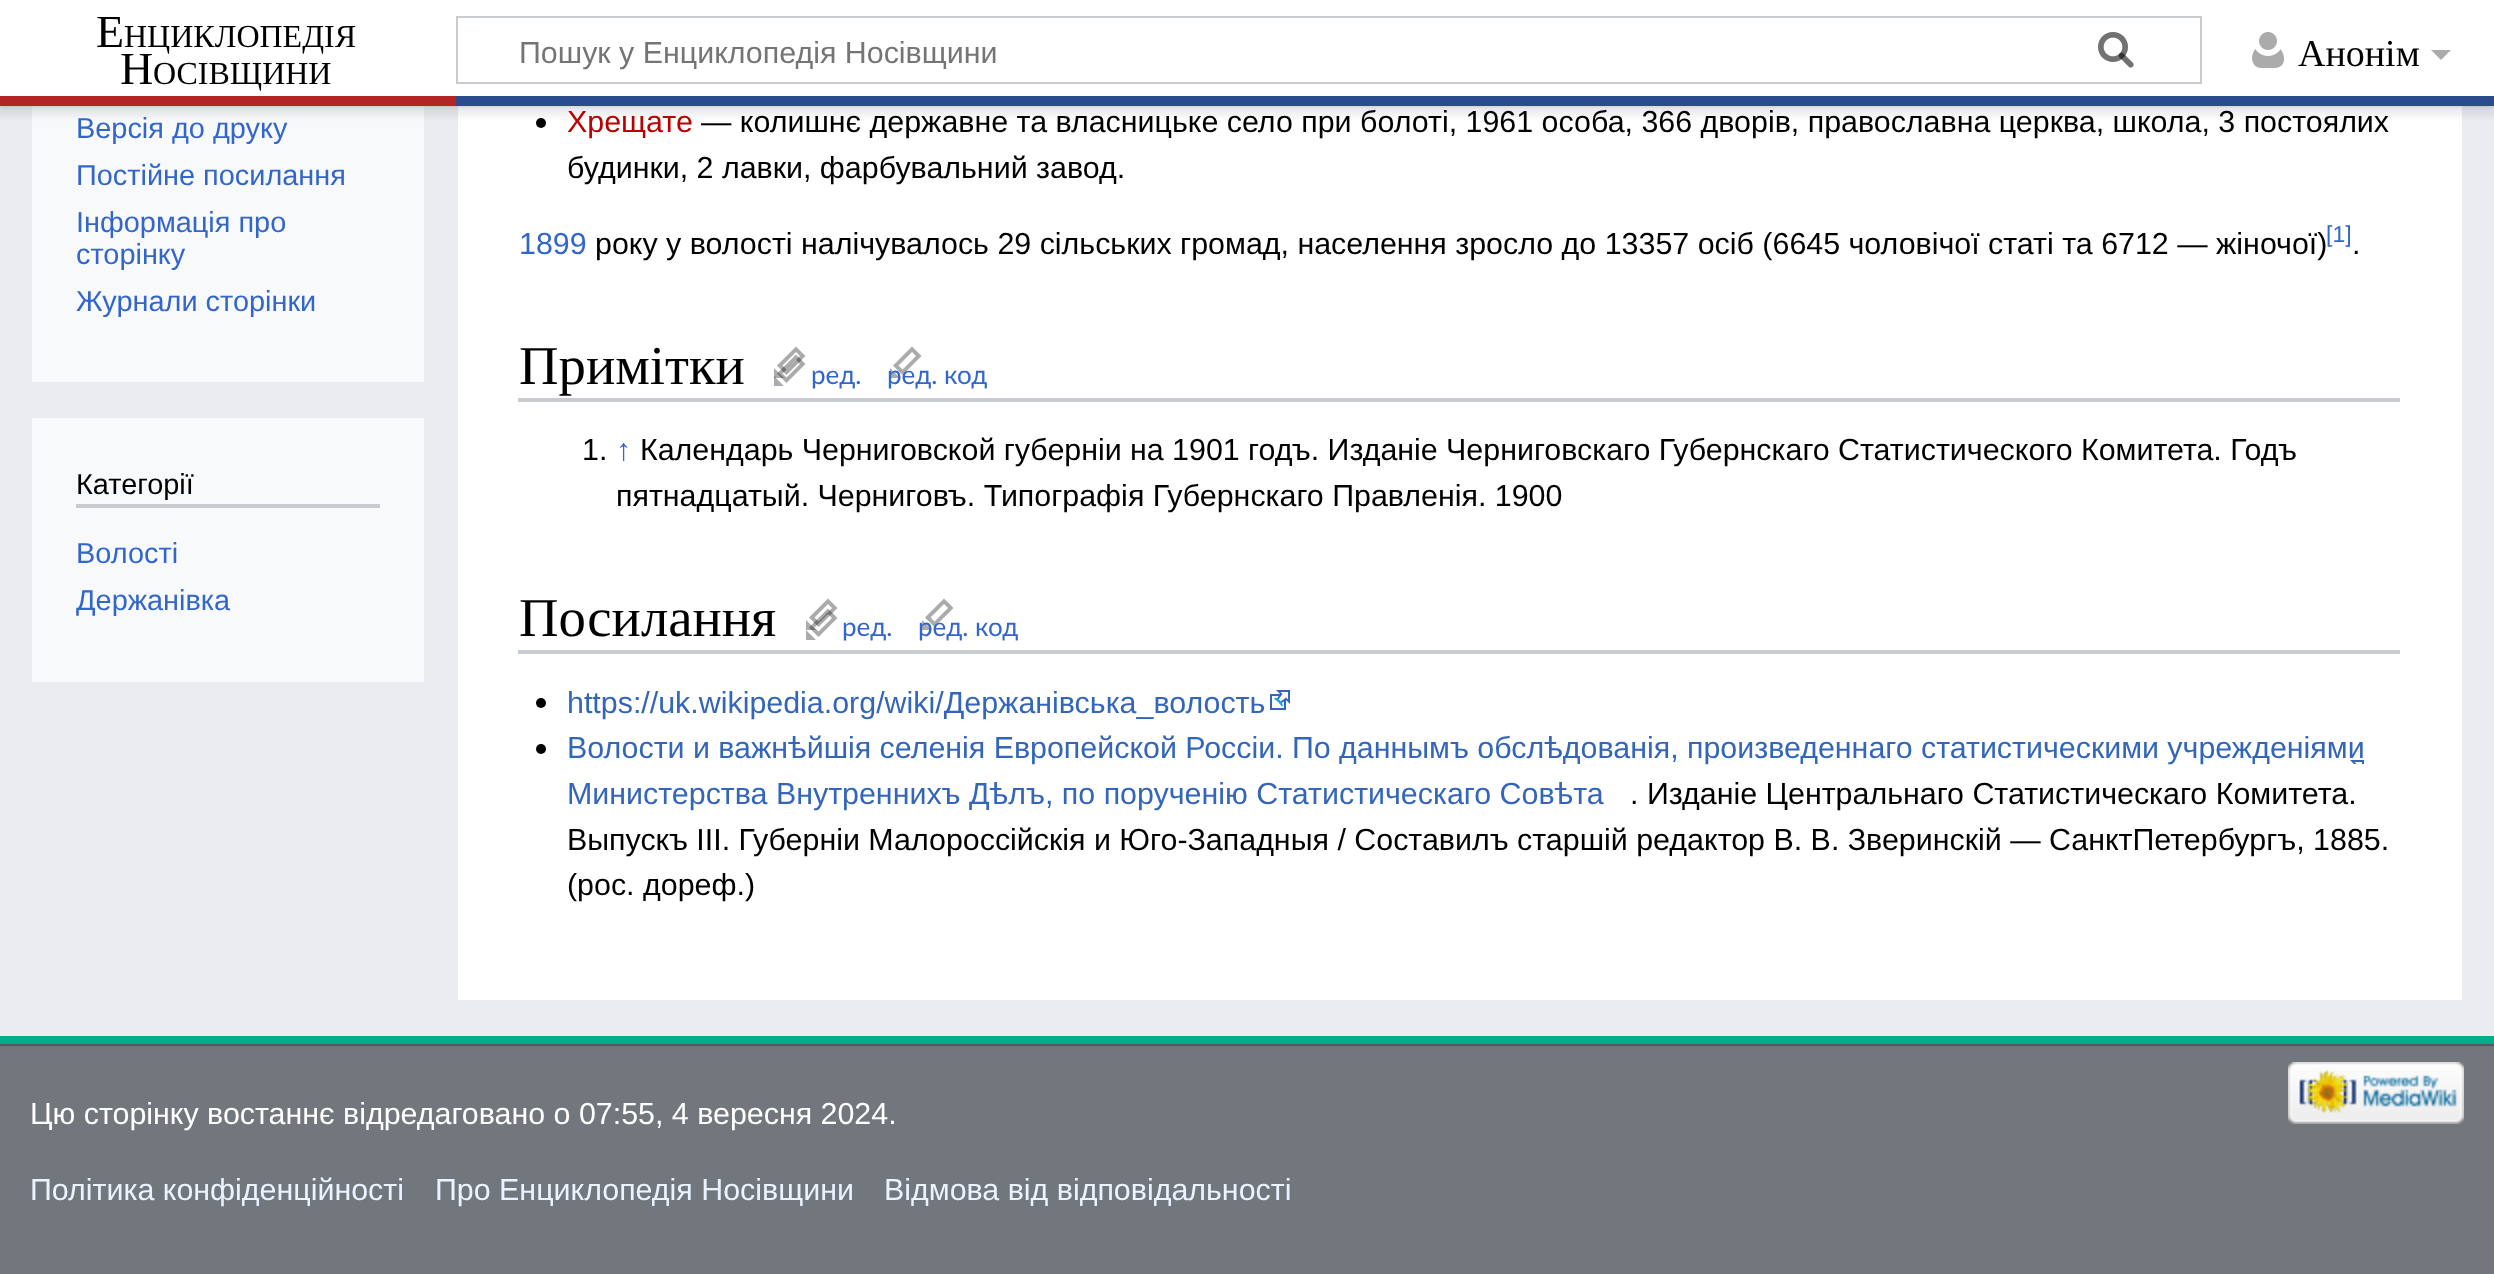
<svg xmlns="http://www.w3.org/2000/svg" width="2494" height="1274">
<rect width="100%" height="100%" fill="#72777d"/>
<rect y="106" width="2494" height="930" fill="#eaecf0"/>
<rect x="32" y="106" width="392" height="276" fill="#f8f9fa"/>
<rect x="458" y="106" width="2004" height="894" fill="#fff"/>
<rect y="96" width="2494" height="10" fill="#00000033" filter="blur(2px)"/>
<circle cx="541" cy="123" r="5" fill="#000"/>
<rect x="-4" y="98" width="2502" height="18" fill="#00000012" filter="blur(3px)"/>
<rect width="2494" height="96" fill="#fff"/>
<text x="96" y="47" style="font-family:Liberation Serif;font-size:46px;fill:#000">Е</text>
<text x="124" y="47" style="font-family:Liberation Serif;font-size:32px;fill:#000">НЦИКЛОПЕДІЯ</text>
<text x="120" y="84" style="font-family:Liberation Serif;font-size:46px;fill:#000">Н</text>
<text x="153" y="84" style="font-family:Liberation Serif;font-size:32px;fill:#000">ОСІВЩИНИ</text>
<rect x="457" y="17" width="1744" height="66" fill="none" stroke="#c8ccd1" stroke-width="2"/>
<image x="2098" y="32" width="36" height="36" href="media/1.png"/>
<text x="519" y="63" style="font-family:Liberation Sans;font-size:30.4px;fill:#757575">Пошук у Енциклопедія Носівщини</text>
<image x="2098" y="32" width="36" height="36" href="media/2.png"/>
<image x="2252" y="32" width="32" height="36" href="media/3.png"/>
<text x="2298" y="66" style="font-family:Liberation Serif;font-size:38px;fill:#000">Анонім</text>
<path d="M2451 50l-10 10l-10-10z" fill="#ababab"/>
<rect y="96" width="456" height="10" fill="#b32424"/>
<rect x="456" y="96" width="2038" height="10" fill="#2a4b8d"/>
<rect y="1036" width="2494" height="8" fill="#00af89"/>
<text x="76" y="138" style="font-family:Liberation Sans;font-size:28.9px;fill:#36c">Версія до друку</text>
<text x="76" y="185" style="font-family:Liberation Sans;font-size:28.9px;fill:#36c">Постійне посилання</text>
<text x="76" y="232" style="font-family:Liberation Sans;font-size:28.9px;fill:#36c">Інформація про</text>
<text x="76" y="264" style="font-family:Liberation Sans;font-size:28.9px;fill:#36c">сторінку</text>
<text x="76" y="311" style="font-family:Liberation Sans;font-size:28.9px;fill:#36c">Журнали сторінки</text>
<rect x="32" y="418" width="392" height="264" fill="#f8f9fa"/>
<rect x="76" y="504" width="304" height="4" fill="#c8ccd1"/>
<text x="76" y="494" style="font-family:Liberation Sans;font-size:28.9px;fill:#000">Категорії</text>
<text x="76" y="563" style="font-family:Liberation Sans;font-size:28.9px;fill:#36c">Волості</text>
<text x="76" y="610" style="font-family:Liberation Sans;font-size:28.9px;fill:#36c">Держанівка</text>
<text x="567" y="132" style="font-family:Liberation Sans;font-size:30.4px;fill:#ba0000">Хрещате</text>
<text x="701" y="132" style="font-family:Liberation Sans;font-size:30.4px;fill:#000">— колишнє державне та власницьке село при болоті, 1961 особа, 366 дворів, православна церква, школа, 3 постоялих</text>
<text x="567" y="178" style="font-family:Liberation Sans;font-size:30.4px;fill:#000">будинки, 2 лавки, фарбувальний завод.</text>
<text x="519" y="254" style="font-family:Liberation Sans;font-size:30.4px;fill:#36c">1899</text>
<text x="595" y="254" style="font-family:Liberation Sans;font-size:30.4px;fill:#000">року у волості налічувалось 29 сільських громад, населення зросло до 13357 осіб (6645 чоловічої статі та 6712 — жіночої)</text>
<text x="2326" y="242" style="font-family:Liberation Sans;font-size:23px;fill:#36c">[1]</text>
<text x="2352" y="254" style="font-family:Liberation Sans;font-size:30.4px;fill:#000">.</text>
<text x="519" y="384" style="font-family:Liberation Serif;font-size:54.75px;fill:#000">Примітки</text>
<path d="M796 354.5l-19 19l9.5 9.5l19-19zm0 5.5l4 4l-13.5 13.5l-4-4zm-12 26h-10v-10z" fill="#ababab"/>
<path d="M796 346.5l-19 19l9.5 9.5l19-19zm0 5.5l4 4l-13.5 13.5l-4-4zm-12 26h-10v-10z" fill="#00000054"/>
<path d="M912 346.5l-19 19l9.5 9.5l19-19zm0 5.5l4 4l-13.5 13.5l-4-4zm-12 26h-10v-10z" fill="#ababab"/>
<text x="811" y="384" style="font-family:Lato;font-size:26px;fill:#36c">ред.</text>
<text x="887" y="384" style="font-family:Lato;font-size:26px;fill:#36c">ред. код</text>
<rect x="518" y="398" width="1882" height="4" fill="#c8ccd1"/>
<text x="582" y="460" style="font-family:Liberation Sans;font-size:30.4px;fill:#000">1.</text>
<text x="616" y="460" style="font-family:Liberation Sans;font-size:30.4px;fill:#36c">↑</text>
<text x="640" y="460" word-spacing="-0.1" style="font-family:Liberation Sans;font-size:30.4px;fill:#000">Календарь Черниговской губерніи на 1901 годъ. Изданіе Черниговскаго Губернскаго Статистического Комитета. Годъ</text>
<text x="616" y="506" style="font-family:Liberation Sans;font-size:30.4px;fill:#000">пятнадцатый. Черниговъ. Типографія Губернскаго Правленія. 1900</text>
<text x="519" y="636" style="font-family:Liberation Serif;font-size:54.75px;fill:#000">Посилання</text>
<path d="M828 608.5l-19 19l9.5 9.5l19-19zm0 5.5l4 4l-13.5 13.5l-4-4zm-12 26h-10v-10z" fill="#ababab"/>
<path d="M828 598.5l-19 19l9.5 9.5l19-19zm0 5.5l4 4l-13.5 13.5l-4-4zm-12 26h-10v-10z" fill="#00000054"/>
<path d="M944 598.5l-19 19l9.5 9.5l19-19zm0 5.5l4 4l-13.5 13.5l-4-4zm-12 26h-10v-10z" fill="#ababab"/>
<text x="842" y="636" style="font-family:Lato;font-size:26px;fill:#36c">ред.</text>
<text x="918" y="636" style="font-family:Lato;font-size:26px;fill:#36c">ред. код</text>
<rect x="518" y="650" width="1882" height="4" fill="#c8ccd1"/>
<circle cx="541" cy="703" r="5" fill="#000"/>
<text x="567" y="713" style="font-family:Liberation Sans;font-size:30.4px;fill:#36b">https://uk.wikipedia.org/wiki/Держанівська_волость</text>
<image x="1270" y="690" width="20" height="20" href="media/4.png"/>
<circle cx="541" cy="749" r="5" fill="#000"/>
<image x="2350" y="760" width="14" height="4" href="media/5.png"/>
<text x="567" y="758" word-spacing="-0.1" style="font-family:Liberation Sans;font-size:30.4px;fill:#36b">Волости и важнѣйшія селенія Европейской Россіи. По даннымъ обслѣдованія, произведеннаго статистическими учрежденіями</text>
<text x="567" y="804" style="font-family:Liberation Sans;font-size:30.4px;fill:#36b">Министерства Внутреннихъ Дѣлъ, по порученію Статистическаго Совѣта</text>
<text x="1630" y="804" style="font-family:Liberation Sans;font-size:30.4px;fill:#000">. Изданіе Центральнаго Статистическаго Комитета.</text>
<text x="567" y="850" style="font-family:Liberation Sans;font-size:30.4px;fill:#000">Выпускъ III. Губерніи Малороссійскія и Юго-Западныя / Составилъ старшій редактор В. В. Зверинскій — СанктПетербургъ, 1885.</text>
<text x="567" y="895" style="font-family:Liberation Sans;font-size:30.4px;fill:#000">(рос. дореф.)</text>
<rect y="1044" width="2494" height="2" fill="#54595d"/>
<image x="2288" y="1062" width="176" height="62" href="media/6.png"/>
<text x="30" y="1124" style="font-family:Liberation Sans;font-size:30.4px;fill:#fff">Цю сторінку востаннє відредаговано о 07:55, 4 вересня 2024.</text>
<text x="30" y="1200" style="font-family:Liberation Sans;font-size:30.4px;fill:#eaf3ff">Політика конфіденційності</text>
<text x="435" y="1200" style="font-family:Liberation Sans;font-size:30.4px;fill:#eaf3ff">Про Енциклопедія Носівщини</text>
<text x="884" y="1200" style="font-family:Liberation Sans;font-size:30.4px;fill:#eaf3ff">Відмова від відповідальності</text>
</svg>
